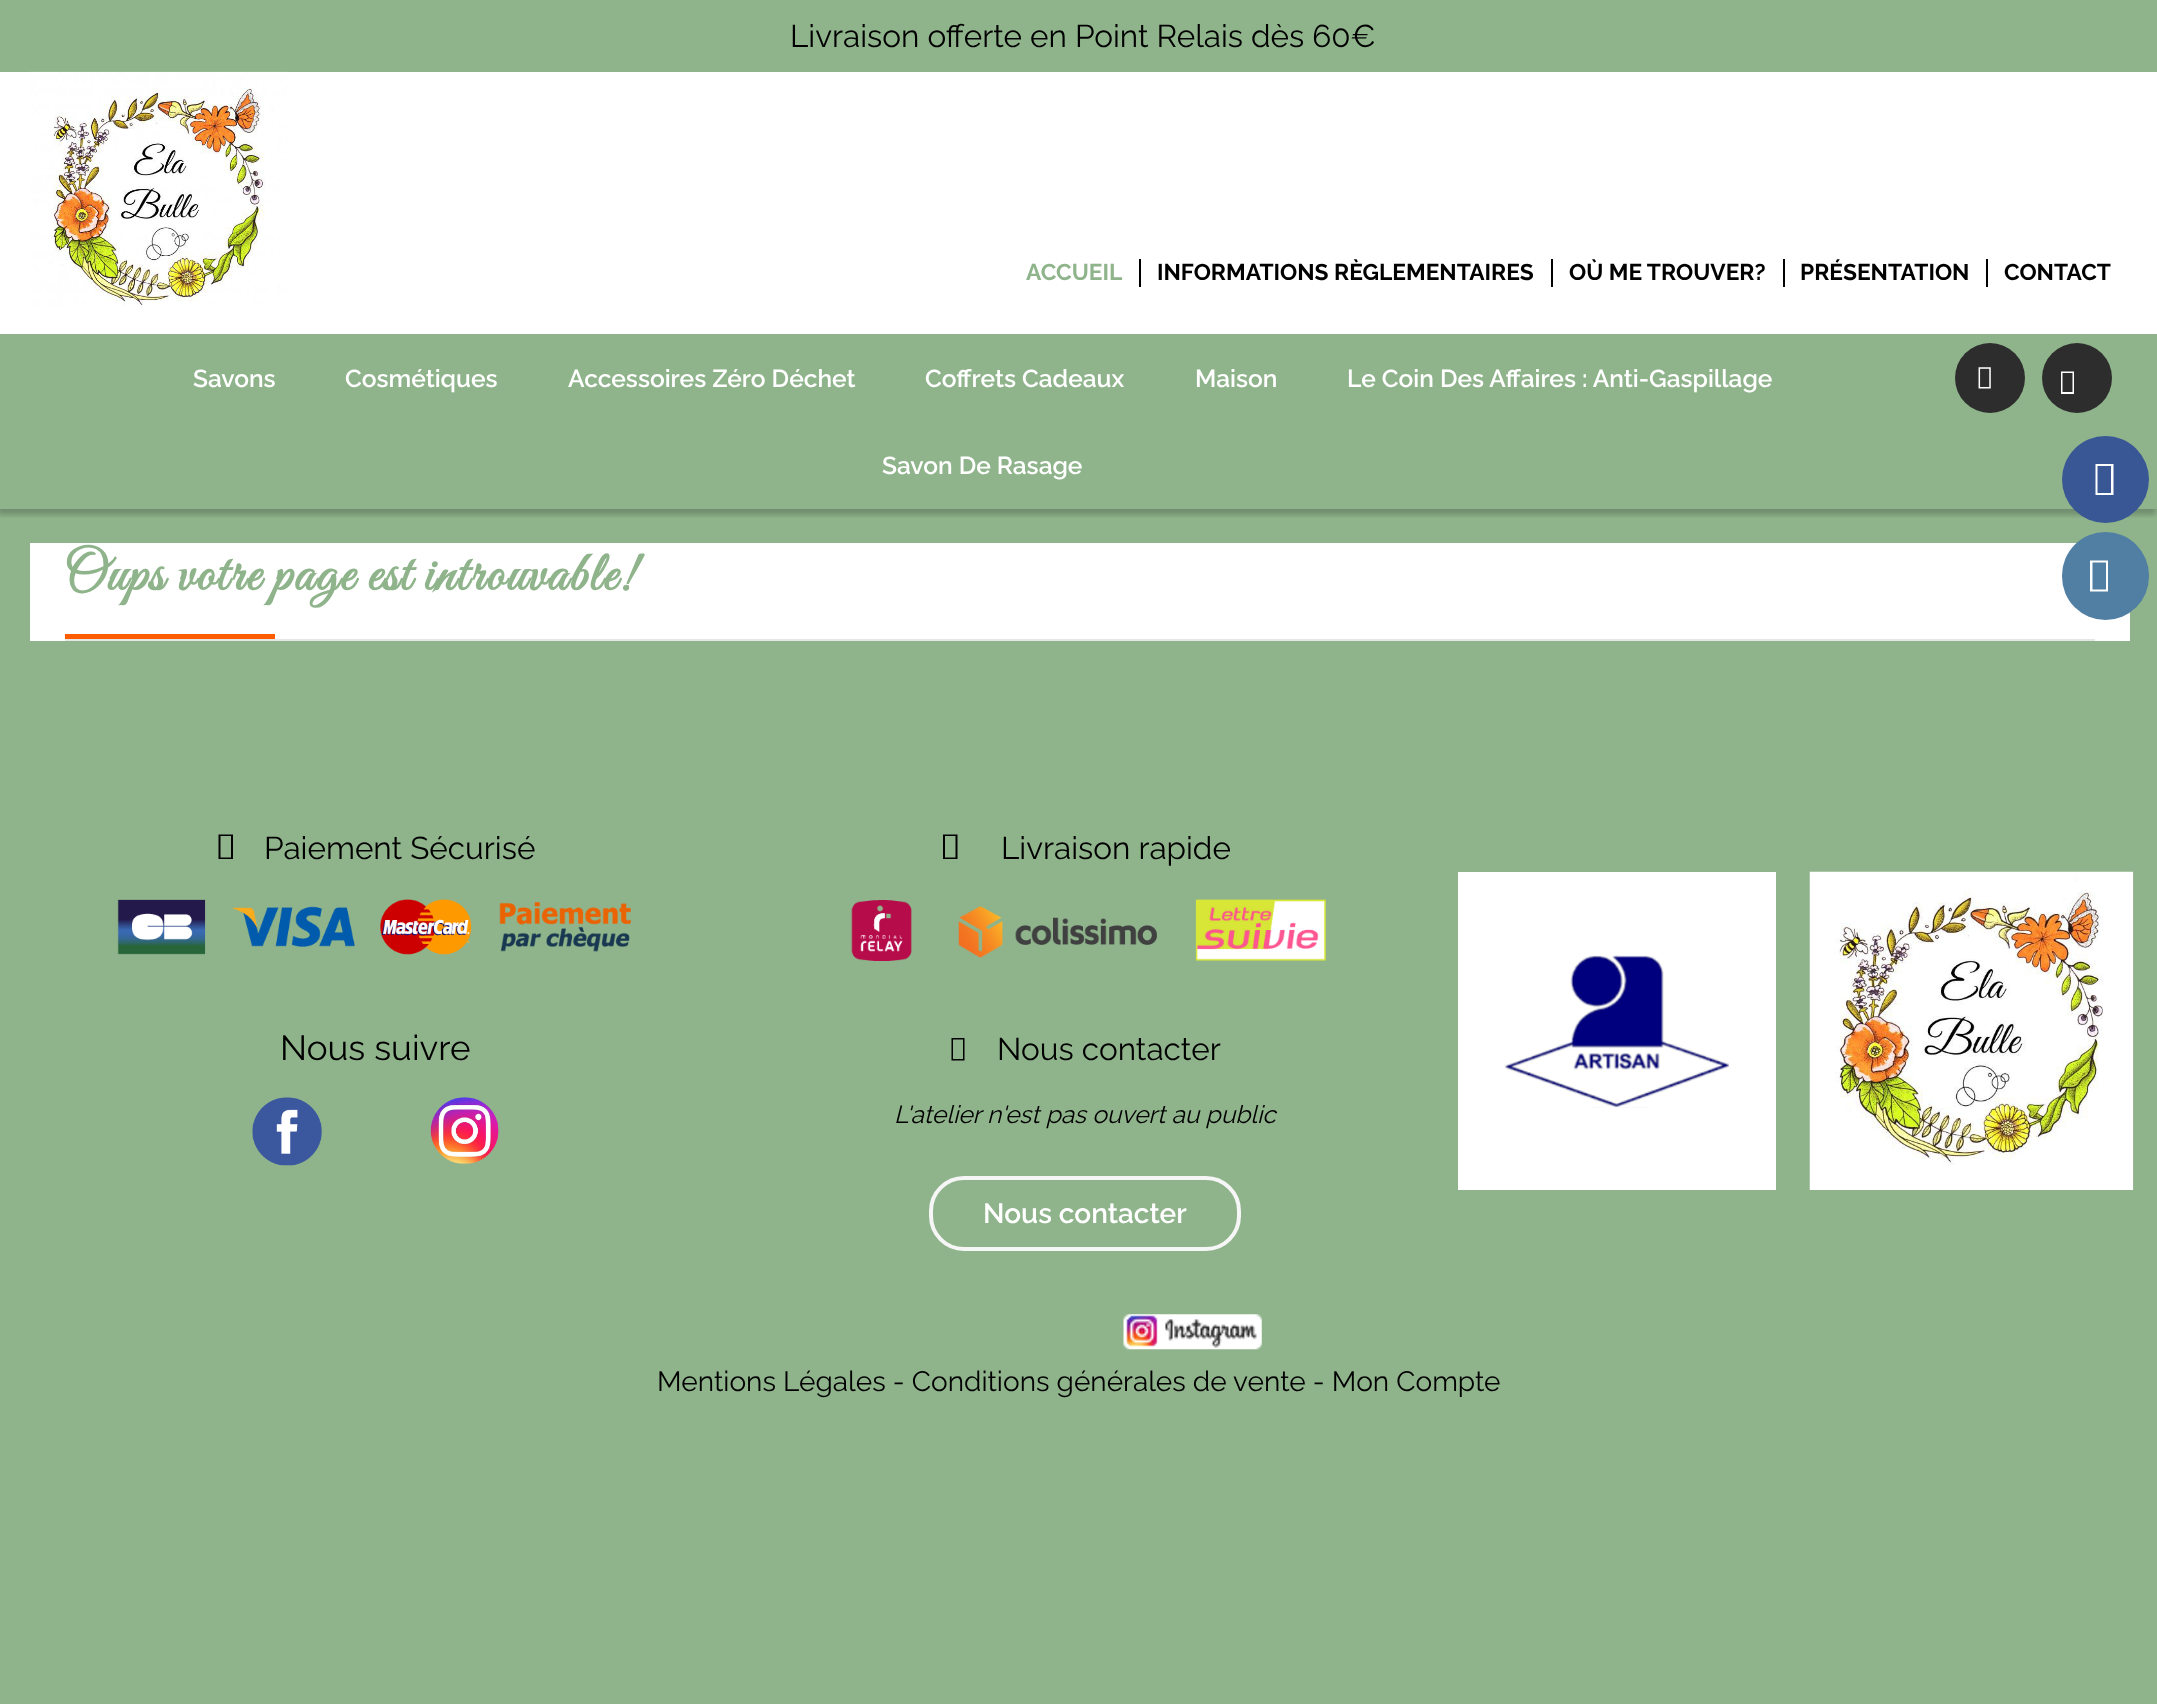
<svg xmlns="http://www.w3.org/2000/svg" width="2157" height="1704">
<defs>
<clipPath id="clip1"><rect x="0" y="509" width="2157" height="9"/></clipPath>
</defs>
<rect width="100%" height="100%" fill="#8fb48b"/>
<text x="790" y="47" style="font-family:Raleway;font-size:31.5px;fill:#000">Livraison offerte en Point Relais dès 60€</text>
<rect y="72" width="2157" height="262" fill="#fff"/>
<image x="30" y="71" width="257" height="235" href="media/1.png"/>
<text x="1026" y="280" style="font-family:Raleway;font-size:22.75px;font-weight:bold;fill:#8fb48b">ACCUEIL</text>
<rect x="1139" y="259" width="2" height="28" fill="#000"/>
<text x="1157" y="280" style="font-family:Raleway;font-size:22.75px;font-weight:bold;fill:#000">INFORMATIONS RÈGLEMENTAIRES</text>
<rect x="1551" y="259" width="2" height="28" fill="#000"/>
<text x="1569" y="280" style="font-family:Raleway;font-size:22.75px;font-weight:bold;fill:#000">OÙ ME TROUVER?</text>
<rect x="1783" y="259" width="2" height="28" fill="#000"/>
<text x="1800" y="280" style="font-family:Raleway;font-size:22.75px;font-weight:bold;fill:#000">PRÉSENTATION</text>
<rect x="1986" y="259" width="2" height="28" fill="#000"/>
<text x="2004" y="280" style="font-family:Raleway;font-size:22.75px;font-weight:bold;fill:#000">CONTACT</text>
<g clip-path="url(#clip1)">
<rect x="-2" y="340" width="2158" height="175" fill="#00000033" filter="blur(2.5px)"/>
</g>
<text x="193" y="387" style="font-family:Raleway;font-size:24.5px;font-weight:600;fill:#fff">Savons</text>
<text x="345" y="387" style="font-family:Raleway;font-size:24.5px;font-weight:600;fill:#fff">Cosmétiques</text>
<text x="568" y="387" style="font-family:Raleway;font-size:24.5px;font-weight:600;fill:#fff">Accessoires Zéro Déchet</text>
<text x="925" y="387" style="font-family:Raleway;font-size:24.5px;font-weight:600;fill:#fff">Coffrets Cadeaux</text>
<text x="1195" y="387" style="font-family:Raleway;font-size:24.5px;font-weight:600;fill:#fff">Maison</text>
<text x="1347" y="387" style="font-family:Raleway;font-size:24.5px;font-weight:600;fill:#fff">Le Coin Des Affaires : Anti-Gaspillage</text>
<text x="882" y="474" style="font-family:Raleway;font-size:24.5px;font-weight:600;fill:#fff">Savon De Rasage</text>
<circle cx="1990" cy="378" r="35" fill="#2d2d2d"/>
<image x="1978" y="367" width="13" height="22" href="media/2.png"/>
<circle cx="2077" cy="378" r="35" fill="#2d2d2d"/>
<path d="M2061 394v-22.5h13v22.5zm1.5-2h10v-19h-10z" fill="#fff"/>
<rect x="30" y="543" width="2100" height="98" fill="#fff"/>
<rect x="65" y="639" width="2030" height="2" fill="#e6e6e6"/>
<text x="64" y="590" style="font-family:Great Vibes;font-size:56px;font-weight:bold;letter-spacing:1.75px;fill:#8fb48b">Oups votre page est introuvable!</text>
<rect x="65" y="634" width="210" height="5" fill="#ff5c00"/>
<path d="M218.5 859v-24.5h14.5v24.5zm2-1.5h10.5v-21.5h-10.5z" fill="#000"/>
<text x="264" y="859" style="font-family:Raleway;font-size:31.5px;fill:#000">Paiement Sécurisé</text>
<image x="117" y="899" width="514" height="56" href="media/3.png"/>
<path d="M943 859v-24.5h14.5v24.5zm2-1.5h10.5v-21.5h-10.5z" fill="#000"/>
<text x="1001" y="859" style="font-family:Raleway;font-size:31.5px;fill:#000">Livraison rapide</text>
<image x="851" y="899" width="475" height="62" href="media/4.png"/>
<text x="280" y="1060" style="font-family:Raleway;font-size:35px;fill:#000">Nous suivre</text>
<image x="252" y="1097" width="70" height="69" href="media/5.png"/>
<image x="430" y="1097" width="69" height="67" href="media/6.png"/>
<path d="M951.5 1060.5v-22.5h13v22.5zm1.5-1.5h10v-19.5h-10z" fill="#000"/>
<text x="997" y="1060" style="font-family:Raleway;font-size:31.5px;fill:#000">Nous contacter</text>
<text x="894" y="1123" style="font-family:Raleway;font-size:24.5px;font-style:italic;fill:#000">L'atelier n'est pas ouvert au public</text>
<rect x="931" y="1178" width="308" height="71" rx="33" fill="none" stroke="#f6f6f6" stroke-width="4"/>
<text x="983" y="1223" style="font-family:Raleway;font-size:28px;font-weight:600;fill:#fff">Nous contacter</text>
<image x="1458" y="872" width="318" height="318" href="media/7.png"/>
<image x="1809" y="871" width="325" height="319" href="media/8.png"/>
<image x="1123" y="1314" width="139" height="36" href="media/9.png"/>
<text x="657" y="1391" style="font-family:Raleway;font-size:28px;fill:#000">Mentions Légales - Conditions générales de vente - Mon Compte</text>
<circle cx="2105.5" cy="479.5" r="43.5" fill="#3a5795"/>
<path d="M2095.5 495v-31h18v31zm2-2h13.5v-27h-13.5z" fill="#fff"/>
<rect x="2062" y="532" width="87" height="88" rx="43.5" fill="#517fa4"/>
<path d="M2090 591.5v-31h18v31zm2.5-2h13.5v-27h-13.5z" fill="#fff"/>
</svg>
